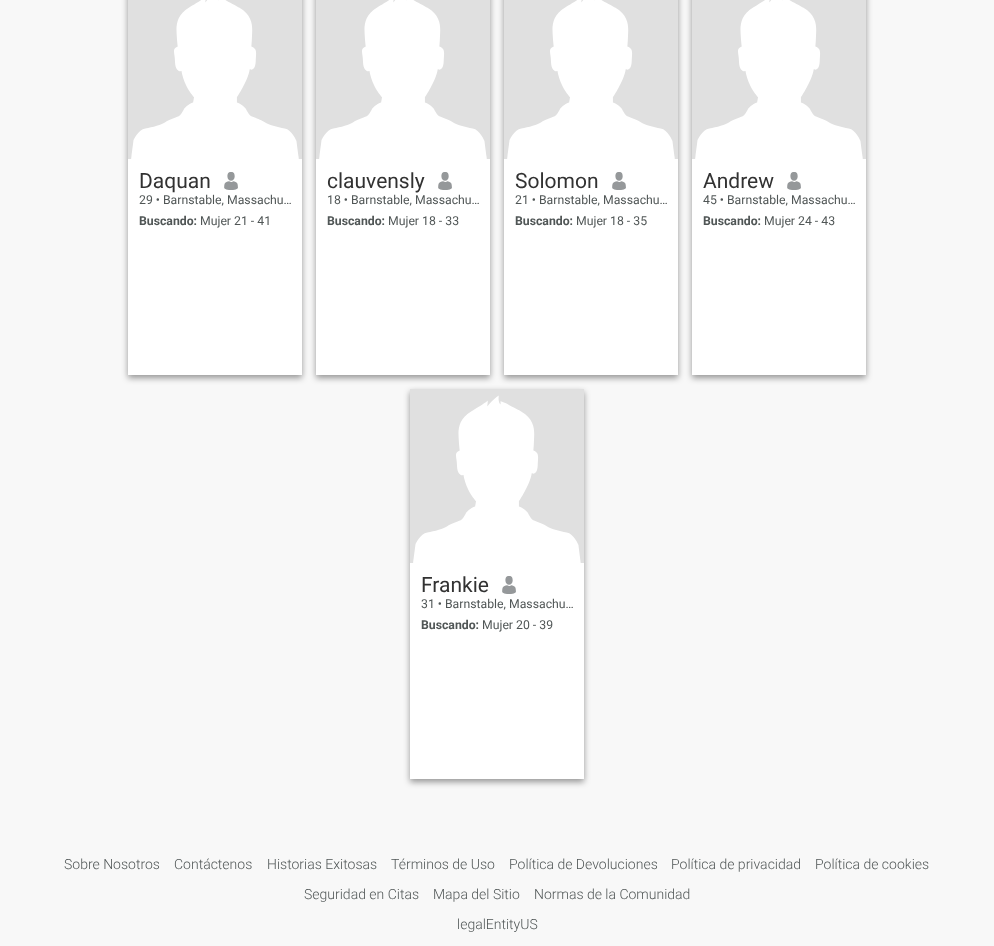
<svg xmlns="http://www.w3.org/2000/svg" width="994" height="946">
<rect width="100%" height="100%" fill="#f8f8f8"/>
<rect x="128" y="-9" width="174" height="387" fill="#00000066" filter="blur(3px)"/>
<rect x="128" y="159" width="174" height="216" fill="#fff"/>
<rect x="128" width="174" height="159" fill="#e0e0e0"/>
<image x="131" y="0" width="168" height="159" href="media/1.png"/>
<text x="139" y="188" style="font-family:Roboto;font-size:21px;fill:#323232">Daquan</text>
<image x="224" y="172" width="14" height="18" href="media/2.png"/>
<text x="139" y="204" style="font-family:Roboto;font-size:12.25px;fill:#505656">29 • Barnstable, Massachu…</text>
<text x="139" y="225" style="font-family:Roboto;font-size:12.25px;font-weight:bold;fill:#505656">Buscando:</text>
<text x="200" y="225" style="font-family:Roboto;font-size:12.25px;fill:#505656">Mujer 21 - 41</text>
<rect x="316" y="-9" width="174" height="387" fill="#00000066" filter="blur(3px)"/>
<rect x="316" y="159" width="174" height="216" fill="#fff"/>
<rect x="316" width="174" height="159" fill="#e0e0e0"/>
<image x="319" y="0" width="168" height="159" href="media/3.png"/>
<text x="327" y="188" style="font-family:Roboto;font-size:21px;fill:#323232">clauvensly</text>
<image x="438" y="172" width="14" height="18" href="media/2.png"/>
<text x="327" y="204" style="font-family:Roboto;font-size:12.25px;fill:#505656">18 • Barnstable, Massachu…</text>
<text x="327" y="225" style="font-family:Roboto;font-size:12.25px;font-weight:bold;fill:#505656">Buscando:</text>
<text x="388" y="225" style="font-family:Roboto;font-size:12.25px;fill:#505656">Mujer 18 - 33</text>
<rect x="504" y="-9" width="174" height="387" fill="#00000066" filter="blur(3px)"/>
<rect x="504" y="159" width="174" height="216" fill="#fff"/>
<rect x="504" width="174" height="159" fill="#e0e0e0"/>
<image x="507" y="0" width="168" height="159" href="media/4.png"/>
<text x="515" y="188" style="font-family:Roboto;font-size:21px;fill:#323232">Solomon</text>
<image x="612" y="172" width="14" height="18" href="media/2.png"/>
<text x="515" y="204" style="font-family:Roboto;font-size:12.25px;fill:#505656">21 • Barnstable, Massachu…</text>
<text x="515" y="225" style="font-family:Roboto;font-size:12.25px;font-weight:bold;fill:#505656">Buscando:</text>
<text x="576" y="225" style="font-family:Roboto;font-size:12.25px;fill:#505656">Mujer 18 - 35</text>
<rect x="692" y="-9" width="174" height="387" fill="#00000066" filter="blur(3px)"/>
<rect x="692" y="159" width="174" height="216" fill="#fff"/>
<rect x="692" width="174" height="159" fill="#e0e0e0"/>
<image x="695" y="0" width="168" height="159" href="media/5.png"/>
<text x="703" y="188" style="font-family:Roboto;font-size:21px;fill:#323232">Andrew</text>
<image x="787" y="172" width="14" height="18" href="media/2.png"/>
<text x="703" y="204" style="font-family:Roboto;font-size:12.25px;fill:#505656">45 • Barnstable, Massachu…</text>
<text x="703" y="225" style="font-family:Roboto;font-size:12.25px;font-weight:bold;fill:#505656">Buscando:</text>
<text x="764" y="225" style="font-family:Roboto;font-size:12.25px;fill:#505656">Mujer 24 - 43</text>
<rect x="410" y="392" width="174" height="390" fill="#00000066" filter="blur(3px)"/>
<rect x="410" y="563" width="174" height="216" fill="#fff"/>
<rect x="410" y="389" width="174" height="174" fill="#e0e0e0"/>
<image x="413" y="395" width="168" height="168" href="media/6.png"/>
<text x="421" y="592" style="font-family:Roboto;font-size:21px;fill:#323232">Frankie</text>
<image x="502" y="576" width="14" height="18" href="media/7.png"/>
<text x="421" y="608" style="font-family:Roboto;font-size:12.25px;fill:#505656">31 • Barnstable, Massachu…</text>
<text x="421" y="629" style="font-family:Roboto;font-size:12.25px;font-weight:bold;fill:#505656">Buscando:</text>
<text x="482" y="629" style="font-family:Roboto;font-size:12.25px;fill:#505656">Mujer 20 - 39</text>
<text x="64" y="869" style="font-family:Roboto;font-size:14px;font-weight:300;fill:#505656">Sobre Nosotros</text>
<text x="174" y="869" style="font-family:Roboto;font-size:14px;font-weight:300;fill:#505656">Contáctenos</text>
<text x="267" y="869" style="font-family:Roboto;font-size:14px;font-weight:300;fill:#505656">Historias Exitosas</text>
<text x="391" y="869" style="font-family:Roboto;font-size:14px;font-weight:300;fill:#505656">Términos de Uso</text>
<text x="509" y="869" style="font-family:Roboto;font-size:14px;font-weight:300;fill:#505656">Política de Devoluciones</text>
<text x="671" y="869" style="font-family:Roboto;font-size:14px;font-weight:300;fill:#505656">Política de privacidad</text>
<text x="815" y="869" style="font-family:Roboto;font-size:14px;font-weight:300;fill:#505656">Política de cookies</text>
<text x="304" y="899" style="font-family:Roboto;font-size:14px;font-weight:300;fill:#505656">Seguridad en Citas</text>
<text x="433" y="899" style="font-family:Roboto;font-size:14px;font-weight:300;fill:#505656">Mapa del Sitio</text>
<text x="534" y="899" style="font-family:Roboto;font-size:14px;font-weight:300;fill:#505656">Normas de la Comunidad</text>
<text x="457" y="929" style="font-family:Roboto;font-size:14px;font-weight:300;fill:#505656">legalEntityUS</text>
</svg>
